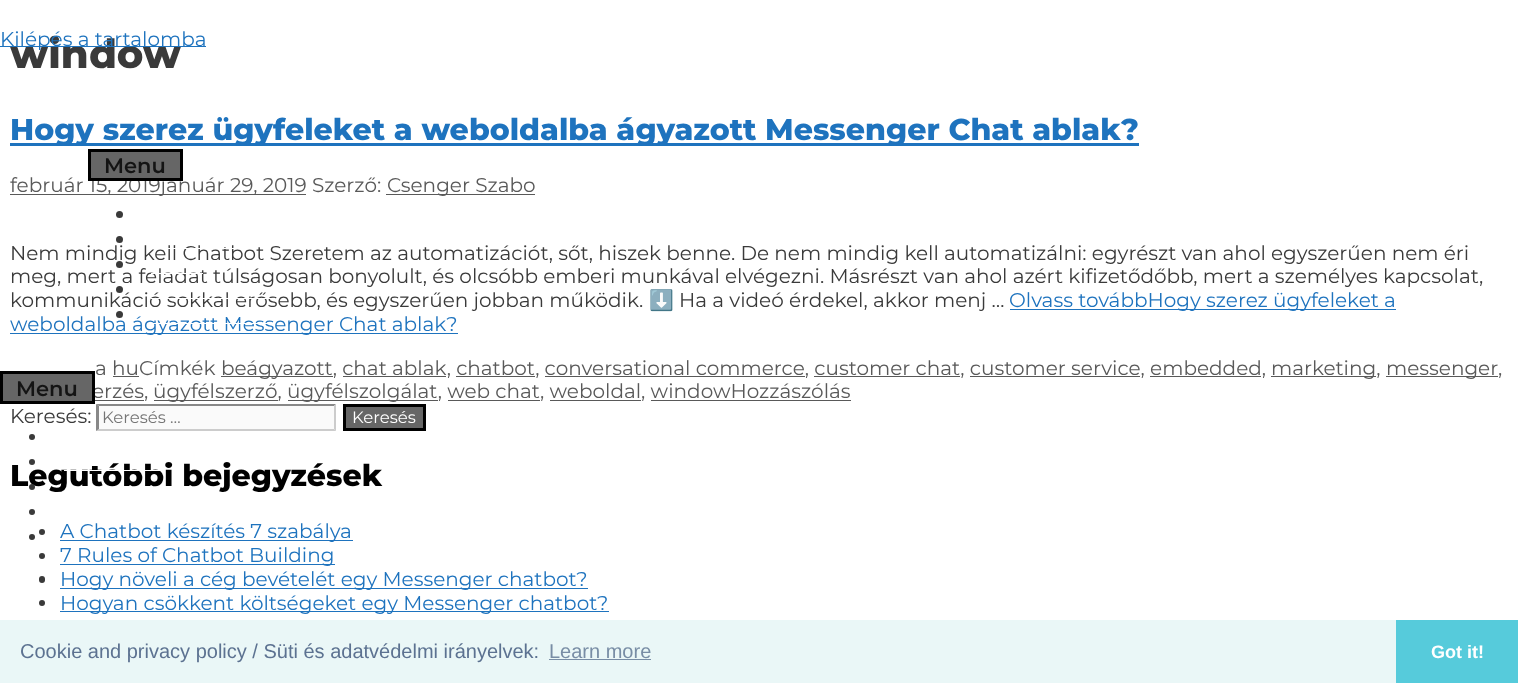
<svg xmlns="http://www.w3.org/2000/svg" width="1518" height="683">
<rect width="100%" height="100%" fill="#fff"/>
<text x="10" y="68" style="font-family:Montserrat;font-size:40px;font-weight:800;fill:#3a3a3a">window</text>
<rect y="46" width="206" height="1" fill="#1e73be"/>
<text x="0" y="46" style="font-family:Montserrat;font-size:20px;fill:#1e73be">Kilépés a tartalomba</text>
<rect x="10" y="194" width="296" height="1" fill="#595959"/>
<text x="10" y="192" style="font-family:Montserrat;font-size:20px;fill:#595959">február 15, 2019január 29, 2019 Szerző:</text>
<rect x="89.5" y="150.5" width="92" height="29" fill="#666" stroke="#000" stroke-width="3"/>
<text x="104" y="173" style="font-family:Montserrat;font-size:21px;font-weight:600;fill:#141414">Menu</text>
<circle cx="119.5" cy="214.5" r="3.5" fill="#3a3a3a"/>
<circle cx="119.5" cy="239.5" r="3.5" fill="#3a3a3a"/>
<text x="10" y="260" style="font-family:Montserrat;font-size:20px;fill:#3a3a3a">Nem mindig kell Chatbot Szeretem az automatizációt, sőt, hiszek benne. De nem mindig kell automatizálni: egyrészt van ahol egyszerűen nem éri</text>
<rect x="168" y="248" width="66" height="1" fill="#fff"/>
<circle cx="119.5" cy="264.5" r="3.5" fill="#3a3a3a"/>
<text x="10" y="283" style="font-family:Montserrat;font-size:20px;fill:#3a3a3a">meg, mert a feladat túlságosan bonyolult, és olcsóbb emberi munkával elvégezni. Másrészt van ahol azért kifizetődőbb, mert a személyes kapcsolat,</text>
<rect x="151" y="273" width="52" height="1" fill="#fff"/>
<circle cx="119.5" cy="289.5" r="3.5" fill="#3a3a3a"/>
<text x="10" y="307" style="font-family:Montserrat;font-size:20px;fill:#3a3a3a">kommunikáció sokkal erősebb, és egyszerűen jobban működik.</text>
<rect x="151" y="298" width="123" height="1" fill="#fff"/>
<rect x="10" y="333" width="448" height="1" fill="#1e73be"/>
<text x="10" y="331" style="font-family:Montserrat;font-size:20px;fill:#1e73be">weboldalba ágyazott Messenger Chat ablak?</text>
<circle cx="119.5" cy="314.5" r="3.5" fill="#3a3a3a"/>
<rect x="151" y="323" width="120" height="1" fill="#fff"/>
<rect x="95" y="400" width="49" height="1" fill="#595959"/>
<text x="92" y="398" style="font-family:Montserrat;font-size:20px;fill:#595959">erzés,</text>
<rect x="1.5" y="372.5" width="92" height="30" fill="#666" stroke="#000" stroke-width="3"/>
<text x="16" y="396" style="font-family:Montserrat;font-size:21px;font-weight:600;fill:#141414">Menu</text>
<circle cx="32" cy="437" r="3" fill="#3a3a3a"/>
<text x="10" y="486" style="font-family:Montserrat;font-size:30px;font-weight:800;fill:#000">Legutóbbi bejegyzések</text>
<circle cx="32" cy="462" r="3" fill="#3a3a3a"/>
<rect x="64" y="470" width="101" height="1" fill="#fff"/>
<circle cx="32" cy="487" r="3" fill="#3a3a3a"/>
<circle cx="32" cy="512" r="3" fill="#3a3a3a"/>
<circle cx="32" cy="537" r="3" fill="#3a3a3a"/>
<rect x="10" y="143" width="1129" height="3" fill="#1e73be"/>
<text x="10" y="140" style="font-family:Montserrat;font-size:30px;font-weight:800;fill:#1e73be">Hogy szerez ügyfeleket a weboldalba ágyazott Messenger Chat ablak?</text>
<rect x="386" y="194" width="149" height="1" fill="#595959"/>
<text x="387" y="192" style="font-family:Montserrat;font-size:20px;fill:#595959">Csenger Szabo</text>
<text x="649" y="307" style="font-family:Noto Color Emoji;font-size:20px;fill:#3a3a3a">⬇️</text>
<text x="679" y="307" style="font-family:Montserrat;font-size:20px;fill:#3a3a3a">Ha a videó érdekel, akkor menj …</text>
<rect x="1010" y="309" width="386" height="1" fill="#1e73be"/>
<text x="1009" y="307" style="font-family:Montserrat;font-size:20px;fill:#1e73be">Olvass továbbHogy szerez ügyfeleket a</text>
<text x="95" y="375" style="font-family:Montserrat;font-size:20px;fill:#595959">a huCímkék</text>
<rect x="113" y="376" width="26" height="1" fill="#595959"/>
<rect x="221" y="376" width="112" height="1" fill="#595959"/>
<text x="221" y="375" style="font-family:Montserrat;font-size:20px;fill:#595959">beágyazott, chat ablak, chatbot, conversational commerce, customer chat, customer service, embedded,</text>
<rect x="343" y="376" width="103" height="1" fill="#595959"/>
<rect x="456" y="376" width="79" height="1" fill="#595959"/>
<rect x="545" y="376" width="260" height="1" fill="#595959"/>
<rect x="814" y="376" width="146" height="1" fill="#595959"/>
<rect x="970" y="376" width="170" height="1" fill="#595959"/>
<rect x="1150" y="376" width="111" height="1" fill="#595959"/>
<rect x="1271" y="376" width="105" height="1" fill="#595959"/>
<text x="1271" y="375" style="font-family:Montserrat;font-size:20px;fill:#595959">marketing,</text>
<rect x="1386" y="376" width="112" height="1" fill="#595959"/>
<text x="1386" y="375" style="font-family:Montserrat;font-size:20px;fill:#595959">messenger,</text>
<rect x="154" y="400" width="124" height="1" fill="#595959"/>
<text x="153" y="398" style="font-family:Montserrat;font-size:20px;fill:#595959">ügyfélszerző,</text>
<rect x="288" y="400" width="150" height="1" fill="#595959"/>
<text x="287" y="398" style="font-family:Montserrat;font-size:20px;fill:#595959">ügyfélszolgálat, web chat, weboldal, windowHozzászólás</text>
<rect x="448" y="400" width="92" height="1" fill="#595959"/>
<rect x="550" y="400" width="91" height="1" fill="#595959"/>
<rect x="651" y="400" width="200" height="1" fill="#595959"/>
<text x="10" y="423" style="font-family:Montserrat;font-size:20px;fill:#3a3a3a">Keresés:</text>
<rect x="96" y="404" width="240" height="27" fill="#fafafa"/>
<path d="M96 404h240l-2 2h-235z" fill="#888"/>
<path d="M336 404v27l-2-2v-23z" fill="#ccc"/>
<path d="M336 431h-240l3-2h235z" fill="#ccc"/>
<path d="M96 431v-27l3 2v23z" fill="#888"/>
<text x="102" y="423" style="font-family:Montserrat;font-size:16.5px;fill:#757575">Keresés …</text>
<rect x="344.5" y="405.5" width="80" height="24" fill="#666" stroke="#000" stroke-width="3"/>
<text x="352" y="423" style="font-family:Montserrat;font-size:16.5px;fill:#fff">Keresés</text>
<circle cx="42" cy="532" r="3" fill="#3a3a3a"/>
<rect x="60" y="540" width="293" height="1" fill="#1e73be"/>
<text x="60" y="538" style="font-family:Montserrat;font-size:20px;fill:#1e73be">A Chatbot készítés 7 szabálya</text>
<circle cx="42" cy="556" r="3" fill="#3a3a3a"/>
<rect x="60" y="564" width="275" height="1" fill="#1e73be"/>
<text x="60" y="562" style="font-family:Montserrat;font-size:20px;fill:#1e73be">7 Rules of Chatbot Building</text>
<rect x="39" y="576" width="6" height="7" rx="3" fill="#3a3a3a"/>
<rect x="60" y="588" width="528" height="1" fill="#1e73be"/>
<text x="60" y="586" style="font-family:Montserrat;font-size:20px;fill:#1e73be">Hogy növeli a cég bevételét egy Messenger chatbot?</text>
<circle cx="42" cy="603" r="3" fill="#3a3a3a"/>
<rect x="60" y="611" width="549" height="1" fill="#1e73be"/>
<text x="60" y="610" style="font-family:Montserrat;font-size:20px;fill:#1e73be">Hogyan csökkent költségeket egy Messenger chatbot?</text>
<rect y="620" width="1396" height="63" fill="#eaf7f7"/>
<text x="20" y="658" style="font-family:Liberation Sans;font-size:20px;fill:#5c7291">Cookie and privacy policy / Süti és adatvédelmi irányelvek:</text>
<text x="549" y="658" style="font-family:Liberation Sans;font-size:20px;fill:#788da5">Learn more</text>
<rect x="549" y="659" width="102" height="1" fill="#788da5"/>
<rect x="1396" y="620" width="122" height="63" fill="#56cbdb"/>
<text x="1431" y="658" style="font-family:Liberation Sans;font-size:18px;font-weight:bold;fill:#fff">Got it!</text>
</svg>
